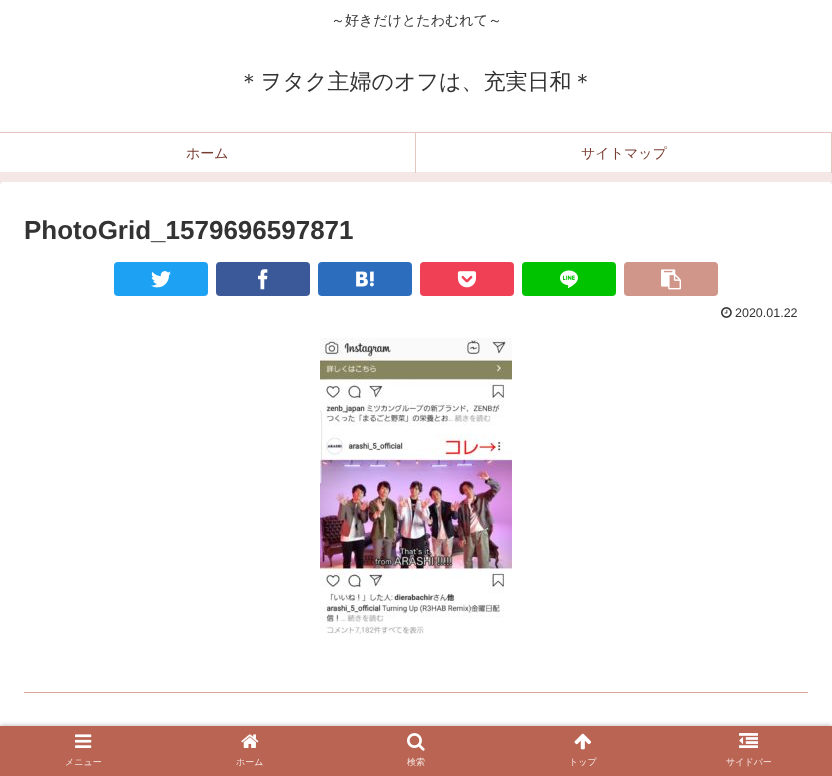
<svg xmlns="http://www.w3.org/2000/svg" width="832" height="776">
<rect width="100%" height="100%" fill="#f4e7e5"/>
<rect width="832" height="172" fill="#fff"/>
<text x="331" y="25" style="font-family:WenQuanYi Zen Hei;font-size:14px;font-weight:500;fill:#333">～好きだけとたわむれて～</text>
<text x="238" y="89" style="font-family:WenQuanYi Zen Hei;font-size:22px;font-weight:500;fill:#333">＊ヲタク主婦のオフは、充実日和＊</text>
<rect y="132" width="832" height="1" fill="#e6c7c0"/>
<rect x="415" y="132" width="1" height="41" fill="#e6c7c0"/>
<text x="186" y="158" style="font-family:WenQuanYi Zen Hei;font-size:14px;font-weight:500;fill:#773c30">ホーム</text>
<rect x="831" y="132" width="1" height="41" fill="#e6c7c0"/>
<text x="581" y="158" style="font-family:WenQuanYi Zen Hei;font-size:14px;font-weight:500;fill:#773c30">サイトマップ</text>
<rect y="182" width="832" height="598" rx="4" fill="#fff"/>
<text x="24" y="239" style="font-family:Liberation Sans;font-size:26px;font-weight:bold;fill:#333">PhotoGrid_1579696597871</text>
<rect x="114" y="262" width="94" height="34" rx="4" fill="#1da1f2"/>
<image x="151" y="271" width="20" height="17" href="media/1.png"/>
<rect x="216" y="262" width="94" height="34" rx="4" fill="#3b5998"/>
<image x="258" y="269" width="10" height="21" href="media/2.png"/>
<rect x="318" y="262" width="94" height="34" rx="4" fill="#2c6ebd"/>
<image x="356" y="271" width="18" height="16" href="media/3.png"/>
<rect x="420" y="262" width="94" height="34" rx="4" fill="#ef4056"/>
<image x="457" y="271" width="19" height="17" href="media/4.png"/>
<rect x="522" y="262" width="94" height="34" rx="4" fill="#00c300"/>
<image x="560" y="270" width="18" height="18" href="media/5.png"/>
<rect x="624" y="262" width="94" height="34" rx="4" fill="#d0968a"/>
<image x="661" y="269" width="20" height="21" href="media/6.png"/>
<image x="721" y="307" width="11" height="11" href="media/7.png"/>
<text x="735" y="317" style="font-family:Liberation Sans;font-size:12.5px;fill:#333">2020.01.22</text>
<image x="320" y="338" width="192" height="296" href="media/8.png"/>
<rect x="24" y="692" width="784" height="1" fill="#d7a69c"/>
<rect y="726" width="832" height="50" fill="#a9a9a9" filter="blur(2.5px)"/>
<rect y="726" width="832" height="50" fill="#ba6553"/>
<image x="75" y="734" width="17" height="14" href="media/9.png"/>
<text x="65" y="765" style="font-family:WenQuanYi Zen Hei;font-size:9px;font-weight:500;fill:#f1e0dd">メニュー</text>
<image x="241" y="734" width="18" height="14" href="media/10.png"/>
<text x="236" y="765" style="font-family:WenQuanYi Zen Hei;font-size:9px;font-weight:500;fill:#f1e0dd">ホーム</text>
<image x="407" y="733" width="18" height="18" href="media/11.png"/>
<text x="407" y="765" style="font-family:WenQuanYi Zen Hei;font-size:9px;font-weight:500;fill:#f1e0dd">検索</text>
<image x="574" y="733" width="17" height="17" href="media/12.png"/>
<text x="569" y="765" style="font-family:WenQuanYi Zen Hei;font-size:9px;font-weight:500;fill:#f1e0dd">トップ</text>
<image x="739" y="733" width="19" height="15" href="media/13.png"/>
<text x="726" y="765" style="font-family:WenQuanYi Zen Hei;font-size:9px;font-weight:500;fill:#f1e0dd">サイドバー</text>
</svg>
